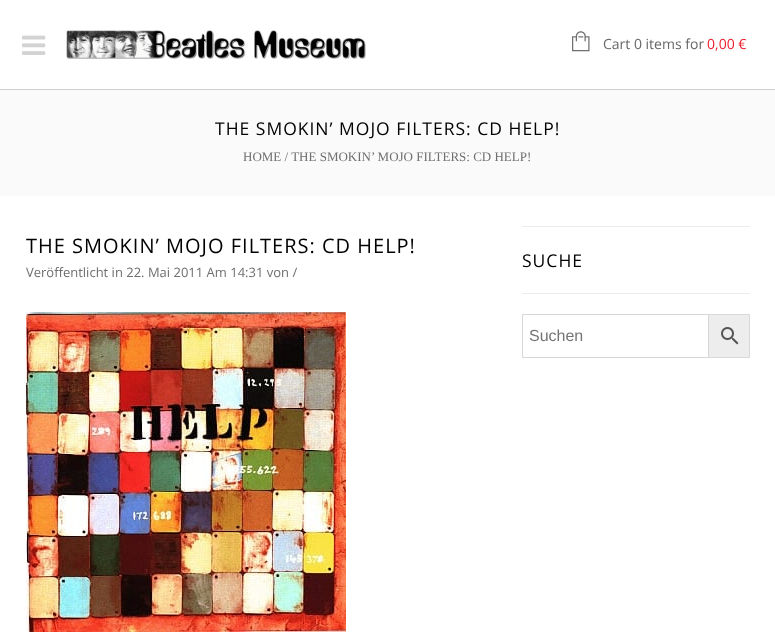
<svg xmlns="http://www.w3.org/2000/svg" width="775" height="633">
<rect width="100%" height="100%" fill="#fff"/>
<rect y="89" width="775" height="1" fill="#d0d0d0"/>
<image x="22" y="35" width="24" height="20" href="media/1.png"/>
<image x="66" y="30" width="300" height="29" href="media/2.png"/>
<image x="572" y="31" width="18" height="21" href="media/3.png"/>
<text x="603" y="49" style="font-family:Open Sans;font-size:14px;fill:#676767">Cart 0 items for</text>
<text x="707" y="49" style="font-family:Open Sans;font-size:14px;fill:#ed1c2e">0,00 €</text>
<rect y="90" width="775" height="106" fill="#fafafa"/>
<text x="215" y="135" style="font-family:Open Sans;font-size:17.5px;letter-spacing:1px;fill:#000">THE SMOKIN’ MOJO FILTERS: CD HELP!</text>
<text x="243" y="161" style="font-family:Liberation Serif;font-size:13px;fill:#6f6f6f">HOME / THE SMOKIN’ MOJO FILTERS: CD HELP!</text>
<text x="26" y="253" style="font-family:Open Sans;font-size:20px;letter-spacing:1px;fill:#000">THE SMOKIN’ MOJO FILTERS: CD HELP!</text>
<text x="26" y="277" style="font-family:Open Sans;font-size:13px;fill:#6f6f6f">Veröffentlicht in 22. Mai 2011 Am 14:31 von /</text>
<image x="26" y="312" width="320" height="320" href="media/4.png"/>
<rect x="522" y="226" width="228" height="1" fill="#ebebeb"/>
<rect x="522" y="293" width="228" height="1" fill="#ebebeb"/>
<text x="522" y="267" style="font-family:Open Sans;font-size:17.5px;letter-spacing:1px;fill:#000">SUCHE</text>
<rect x="708.5" y="314.5" width="41" height="43" fill="#ededed" stroke="#d8d8d8"/>
<rect x="522.5" y="314.5" width="186" height="43" fill="none" stroke="#d8d8d8"/>
<text x="529" y="341" style="font-family:Liberation Sans;font-size:16px;fill:#757575">Suchen</text>
<image x="721" y="327" width="18" height="18" href="media/5.png"/>
</svg>
